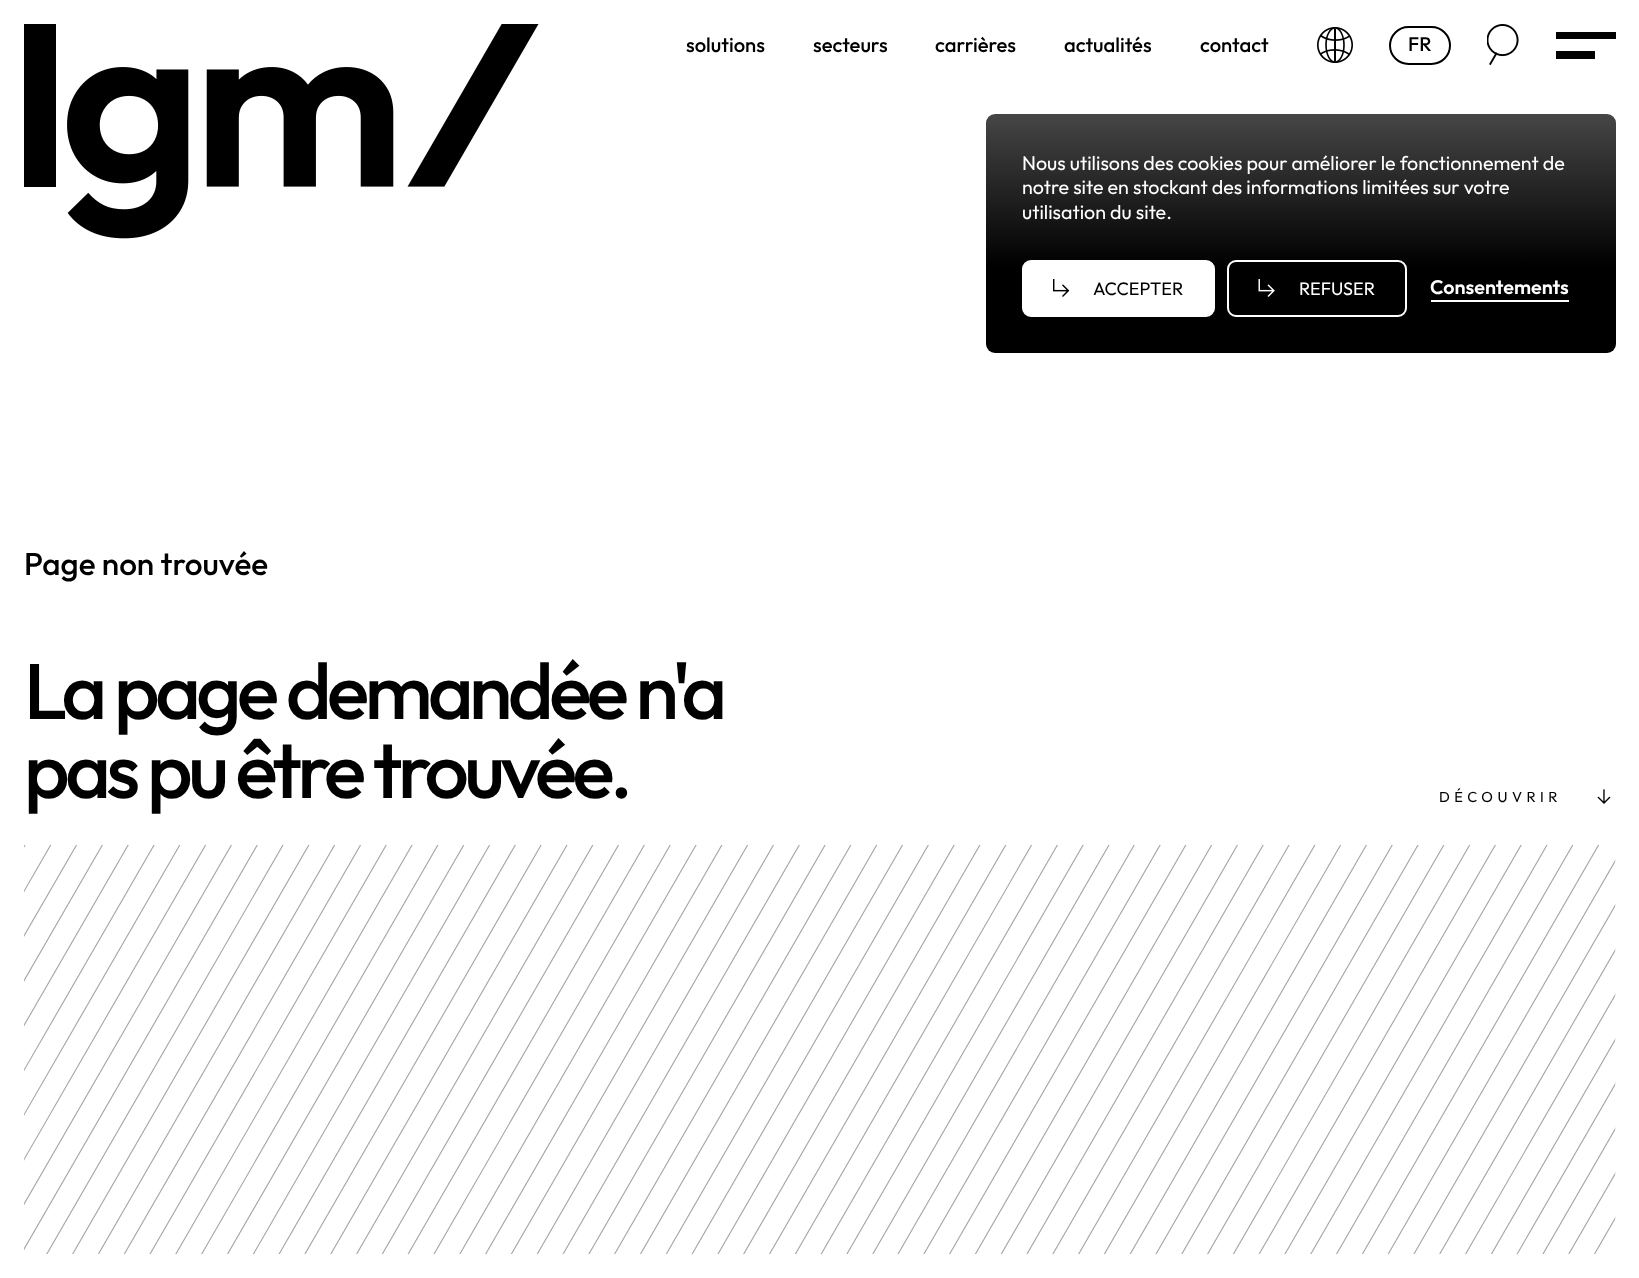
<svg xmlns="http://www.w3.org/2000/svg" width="1639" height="1278">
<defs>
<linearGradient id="g1" gradientUnits="userSpaceOnUse" x1="1301" y1="114" x2="1301" y2="353"><stop offset="0" stop-color="#464646"/><stop offset="0.64" stop-color="#000"/></linearGradient>
</defs>
<rect width="100%" height="100%" fill="#fff"/>
<image x="24" y="24" width="515" height="215" href="media/1.png"/>
<text x="686" y="52" style="font-family:Outfit;font-size:20.25px;font-weight:500;fill:#000">solutions</text>
<text x="813" y="52" style="font-family:Outfit;font-size:20.25px;font-weight:500;fill:#000">secteurs</text>
<text x="935" y="52" style="font-family:Outfit;font-size:20.25px;font-weight:500;fill:#000">carrières</text>
<text x="1064" y="52" style="font-family:Outfit;font-size:20.25px;font-weight:500;fill:#000">actualités</text>
<text x="1200" y="52" style="font-family:Outfit;font-size:20.25px;font-weight:500;fill:#000">contact</text>
<image x="1317" y="27" width="36" height="36" href="media/2.png"/>
<rect x="1390" y="27" width="60" height="37" rx="18.5" fill="none" stroke="#000" stroke-width="2"/>
<text x="1408" y="51" style="font-family:Outfit;font-size:19.7px;font-weight:500;fill:#000">FR</text>
<image x="1487" y="24" width="32" height="41" href="media/3.png"/>
<rect x="1556" y="32" width="60" height="7" fill="#000"/>
<rect x="1556" y="51" width="39" height="8" fill="#000"/>
<text x="24" y="575" style="font-family:Outfit;font-size:31.5px;font-weight:500;fill:#000">Page non trouvée</text>
<text x="24" y="719" style="font-family:Outfit;font-size:78.75px;font-weight:500;letter-spacing:-4.5px;fill:#000">La page demandée n'a</text>
<text x="24" y="798" style="font-family:Outfit;font-size:78.75px;font-weight:500;letter-spacing:-4.5px;fill:#000">pas pu être trouvée.</text>
<text x="1439" y="802" style="font-family:Outfit;font-size:14.6px;letter-spacing:4.5px;fill:#000">DÉCOUVRIR</text>
<image x="1597" y="789" width="14" height="15" href="media/4.png"/>
<image x="24" y="845" width="1592" height="409" href="media/5.png"/>
<rect x="986" y="114" width="630" height="239" rx="9" fill="url(#g1)"/>
<text x="1022" y="170" style="font-family:Outfit;font-size:19.7px;fill:#fff">Nous utilisons des cookies pour améliorer le fonctionnement de</text>
<text x="1022" y="194" style="font-family:Outfit;font-size:19.7px;fill:#fff">notre site en stockant des informations limitées sur votre</text>
<text x="1022" y="219" style="font-family:Outfit;font-size:19.7px;fill:#fff">utilisation du site.</text>
<rect x="1023" y="261" width="191" height="55" rx="8" fill="#fff" stroke="#fff" stroke-width="2"/>
<image x="1053" y="279" width="17" height="18" href="media/6.png"/>
<text x="1093" y="295" style="font-family:Outfit;font-size:18px;fill:#000">ACCEPTER</text>
<rect x="1228" y="261" width="178" height="55" rx="8" fill="none" stroke="#fff" stroke-width="2"/>
<image x="1258" y="279" width="17" height="18" href="media/7.png"/>
<text x="1299" y="295" style="font-family:Outfit;font-size:18px;fill:#fff">REFUSER</text>
<text x="1430" y="294" style="font-family:Outfit;font-size:19.7px;font-weight:600;fill:#fff">Consentements</text>
<rect x="1431" y="300" width="138" height="2" fill="#fff"/>
</svg>
